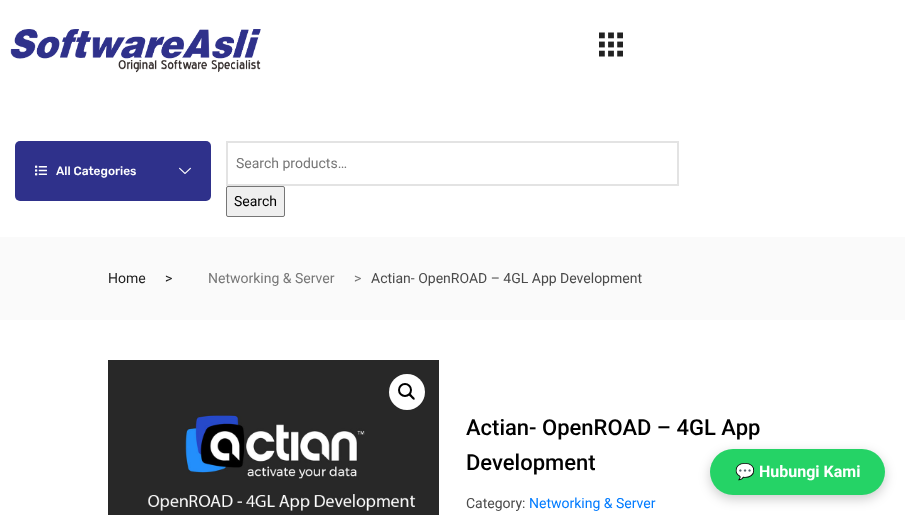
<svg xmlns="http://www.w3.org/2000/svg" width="905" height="515">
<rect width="100%" height="100%" fill="#fff"/>
<image x="10" y="29" width="251" height="44" href="media/1.png"/>
<image x="599" y="32" width="24" height="25" href="media/2.png"/>
<rect x="15" y="141" width="196" height="60" rx="5" fill="#2f318b"/>
<image x="35" y="165" width="12" height="11" href="media/3.png"/>
<text x="56" y="175" style="font-family:Rubik;font-size:12px;font-weight:500;fill:#fff">All Categories</text>
<image x="179" y="167" width="12" height="7" href="media/4.png"/>
<rect x="227" y="142" width="451" height="43" fill="none" stroke="#e3e3e3" stroke-width="2"/>
<text x="236" y="168" style="font-family:Roboto;font-size:14px;fill:#777">Search products…</text>
<rect x="226.5" y="186.5" width="58" height="30" rx="1.5" fill="#efefef" stroke="#767676"/>
<text x="234" y="206" style="font-family:Roboto;font-size:14px;fill:#000">Search</text>
<rect y="237" width="905" height="83" fill="#fafafa"/>
<text x="108" y="283" style="font-family:Roboto;font-size:14px;fill:#222">Home</text>
<text x="165" y="283" style="font-family:Roboto;font-size:14px;fill:#222">&gt;</text>
<text x="208" y="283" style="font-family:Roboto;font-size:14px;fill:#777">Networking &amp; Server</text>
<text x="354" y="283" style="font-family:Roboto;font-size:14px;fill:#777">&gt;</text>
<text x="371" y="283" style="font-family:Roboto;font-size:14px;fill:#4a4a4a">Actian- OpenROAD – 4GL App Development</text>
<image x="108" y="360" width="331" height="155" href="media/5.png"/>
<circle cx="407" cy="392" r="18" fill="#fff"/>
<circle cx="405" cy="390" r="6" fill="none" stroke="#000" stroke-width="2"/>
<path d="M409 394c1-1.5 3 1.5 3.5 2c.5 .5 3 2 2 3.5c-1 1-3-1.5-3.5-2c-.5-1-3.5-2.5-2-3.5z" fill="#000"/>
<text x="466" y="435" style="font-family:Roboto;font-size:22px;font-weight:500;fill:#000">Actian- OpenROAD – 4GL App</text>
<text x="466" y="470" style="font-family:Roboto;font-size:22px;font-weight:500;fill:#000">Development</text>
<text x="466" y="508" style="font-family:Roboto;font-size:14px;fill:#4a4a4a">Category:</text>
<text x="529" y="508" style="font-family:Roboto;font-size:14px;fill:#007bff">Networking &amp; Server</text>
<rect x="710" y="453" width="175" height="46" rx="23" fill="#00000033" filter="blur(6px)"/>
<rect x="710" y="449" width="175" height="46" rx="23" fill="#25d366"/>
<text x="735" y="477" style="font-family:Noto Color Emoji;font-size:16px;font-weight:bold;fill:#fff">💬</text>
<text x="759" y="477" style="font-family:Roboto;font-size:16px;font-weight:bold;fill:#fff">Hubungi Kami</text>
</svg>
